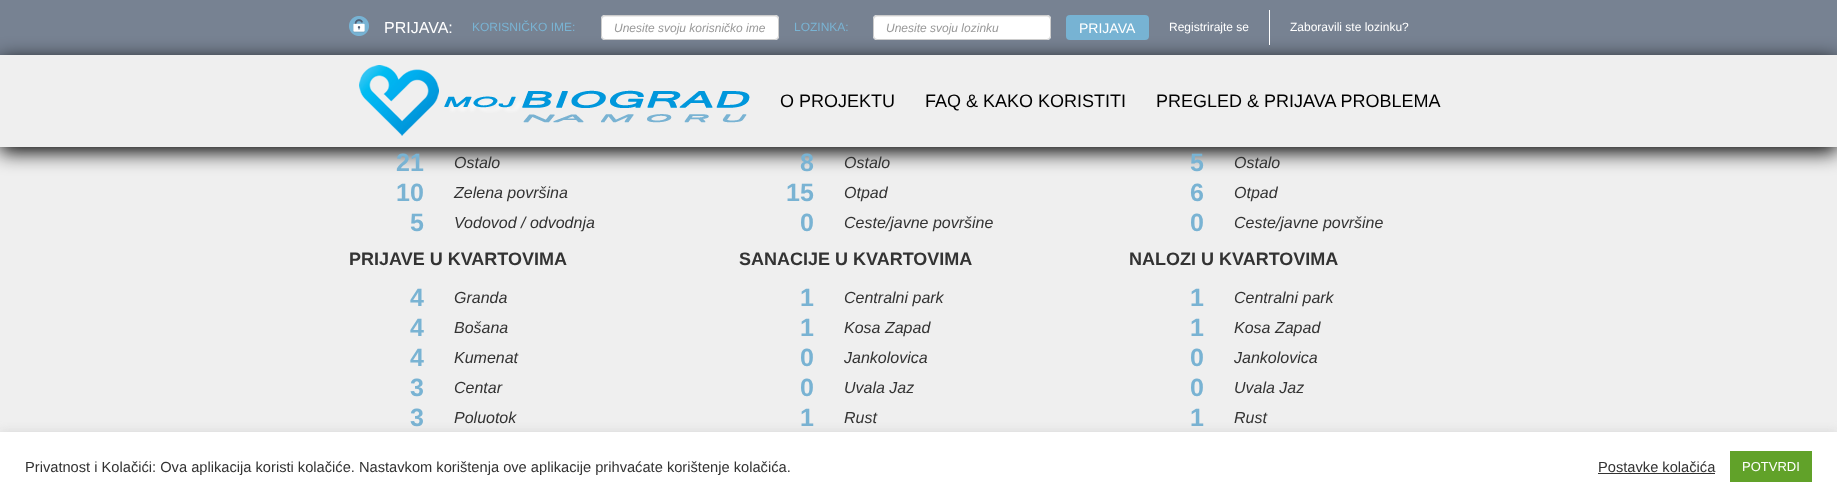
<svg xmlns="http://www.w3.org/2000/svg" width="1837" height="501">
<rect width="100%" height="100%" fill="#efefef"/>
<rect width="1837" height="55" fill="#4f5d73bf"/>
<rect y="60" width="1837" height="92" fill="#000" filter="blur(10px)"/>
<image x="349" y="16" width="20" height="20" href="media/1.png"/>
<text x="384" y="33" style="font-family:Liberation Sans;font-size:16px;fill:#fff">PRIJAVA:</text>
<text x="472" y="31" style="font-family:Liberation Sans;font-size:12px;fill:#79b3d3">KORISNIČKO IME:</text>
<rect x="601" y="15" width="178" height="25" rx="4" fill="#fff"/>
<path d="M605 17h170c2 0 3 1 3 3v-1c0-2-1-3-3-3h-170c-2 0-3 1-3 3v1c0-2 1-3 3-3z" fill="#ececec"/>
<rect x="601.5" y="15.5" width="177" height="24" rx="3.5" fill="none" stroke="#ccc"/>
<text x="614" y="32" style="font-family:Liberation Sans;font-size:12px;font-style:italic;fill:#999">Unesite svoju korisničko ime</text>
<text x="794" y="31" style="font-family:Liberation Sans;font-size:12px;fill:#79b3d3">LOZINKA:</text>
<rect x="873" y="15" width="178" height="25" rx="4" fill="#fff"/>
<path d="M877 17h170c2 0 3 1 3 3v-1c0-2-1-3-3-3h-170c-2 0-3 1-3 3v1c0-2 1-3 3-3z" fill="#ececec"/>
<rect x="873.5" y="15.5" width="177" height="24" rx="3.5" fill="none" stroke="#ccc"/>
<text x="886" y="32" style="font-family:Liberation Sans;font-size:12px;font-style:italic;fill:#999">Unesite svoju lozinku</text>
<rect x="1066" y="15" width="83" height="25" rx="4" fill="#77b3d3"/>
<text x="1079" y="33" style="font-family:Liberation Sans;font-size:14px;fill:#fff">PRIJAVA</text>
<rect x="1269" y="10" width="1" height="35" fill="#fff"/>
<text x="1169" y="31" style="font-family:Liberation Sans;font-size:12px;fill:#fff">Registrirajte se</text>
<text x="1290" y="31" style="font-family:Liberation Sans;font-size:12px;fill:#fff">Zaboravili ste lozinku?</text>
<rect y="55" width="1837" height="92" fill="#efefef"/>
<image x="359" y="65" width="391" height="71" href="media/2.png"/>
<text x="780" y="107" style="font-family:Liberation Sans;font-size:18px;fill:#000">O PROJEKTU</text>
<text x="925" y="107" style="font-family:Liberation Sans;font-size:18px;fill:#000">FAQ &amp; KAKO KORISTITI</text>
<text x="1156" y="107" style="font-family:Liberation Sans;font-size:18px;fill:#000">PREGLED &amp; PRIJAVA PROBLEMA</text>
<text x="396" y="171" style="font-family:Liberation Sans;font-size:25px;font-weight:bold;fill:#79b3d3">21</text>
<text x="454" y="168" style="font-family:Liberation Sans;font-size:16px;font-style:italic;fill:#333">Ostalo</text>
<text x="396" y="201" style="font-family:Liberation Sans;font-size:25px;font-weight:bold;fill:#79b3d3">10</text>
<text x="454" y="198" style="font-family:Liberation Sans;font-size:16px;font-style:italic;fill:#333">Zelena površina</text>
<text x="410" y="231" style="font-family:Liberation Sans;font-size:25px;font-weight:bold;fill:#79b3d3">5</text>
<text x="454" y="228" style="font-family:Liberation Sans;font-size:16px;font-style:italic;fill:#333">Vodovod / odvodnja</text>
<text x="800" y="171" style="font-family:Liberation Sans;font-size:25px;font-weight:bold;fill:#79b3d3">8</text>
<text x="844" y="168" style="font-family:Liberation Sans;font-size:16px;font-style:italic;fill:#333">Ostalo</text>
<text x="786" y="201" style="font-family:Liberation Sans;font-size:25px;font-weight:bold;fill:#79b3d3">15</text>
<text x="844" y="198" style="font-family:Liberation Sans;font-size:16px;font-style:italic;fill:#333">Otpad</text>
<text x="800" y="231" style="font-family:Liberation Sans;font-size:25px;font-weight:bold;fill:#79b3d3">0</text>
<text x="844" y="228" style="font-family:Liberation Sans;font-size:16px;font-style:italic;fill:#333">Ceste/javne površine</text>
<text x="1190" y="171" style="font-family:Liberation Sans;font-size:25px;font-weight:bold;fill:#79b3d3">5</text>
<text x="1234" y="168" style="font-family:Liberation Sans;font-size:16px;font-style:italic;fill:#333">Ostalo</text>
<text x="1190" y="201" style="font-family:Liberation Sans;font-size:25px;font-weight:bold;fill:#79b3d3">6</text>
<text x="1234" y="198" style="font-family:Liberation Sans;font-size:16px;font-style:italic;fill:#333">Otpad</text>
<text x="1190" y="231" style="font-family:Liberation Sans;font-size:25px;font-weight:bold;fill:#79b3d3">0</text>
<text x="1234" y="228" style="font-family:Liberation Sans;font-size:16px;font-style:italic;fill:#333">Ceste/javne površine</text>
<text x="349" y="265" style="font-family:Liberation Sans;font-size:18px;font-weight:bold;fill:#333">PRIJAVE U KVARTOVIMA</text>
<text x="410" y="306" style="font-family:Liberation Sans;font-size:25px;font-weight:bold;fill:#79b3d3">4</text>
<text x="454" y="303" style="font-family:Liberation Sans;font-size:16px;font-style:italic;fill:#333">Granda</text>
<text x="410" y="336" style="font-family:Liberation Sans;font-size:25px;font-weight:bold;fill:#79b3d3">4</text>
<text x="454" y="333" style="font-family:Liberation Sans;font-size:16px;font-style:italic;fill:#333">Bošana</text>
<text x="410" y="366" style="font-family:Liberation Sans;font-size:25px;font-weight:bold;fill:#79b3d3">4</text>
<text x="454" y="363" style="font-family:Liberation Sans;font-size:16px;font-style:italic;fill:#333">Kumenat</text>
<text x="410" y="396" style="font-family:Liberation Sans;font-size:25px;font-weight:bold;fill:#79b3d3">3</text>
<text x="454" y="393" style="font-family:Liberation Sans;font-size:16px;font-style:italic;fill:#333">Centar</text>
<text x="410" y="426" style="font-family:Liberation Sans;font-size:25px;font-weight:bold;fill:#79b3d3">3</text>
<text x="454" y="423" style="font-family:Liberation Sans;font-size:16px;font-style:italic;fill:#333">Poluotok</text>
<text x="739" y="265" style="font-family:Liberation Sans;font-size:18px;font-weight:bold;fill:#333">SANACIJE U KVARTOVIMA</text>
<text x="800" y="306" style="font-family:Liberation Sans;font-size:25px;font-weight:bold;fill:#79b3d3">1</text>
<text x="844" y="303" style="font-family:Liberation Sans;font-size:16px;font-style:italic;fill:#333">Centralni park</text>
<text x="800" y="336" style="font-family:Liberation Sans;font-size:25px;font-weight:bold;fill:#79b3d3">1</text>
<text x="844" y="333" style="font-family:Liberation Sans;font-size:16px;font-style:italic;fill:#333">Kosa Zapad</text>
<text x="800" y="366" style="font-family:Liberation Sans;font-size:25px;font-weight:bold;fill:#79b3d3">0</text>
<text x="844" y="363" style="font-family:Liberation Sans;font-size:16px;font-style:italic;fill:#333">Jankolovica</text>
<text x="800" y="396" style="font-family:Liberation Sans;font-size:25px;font-weight:bold;fill:#79b3d3">0</text>
<text x="844" y="393" style="font-family:Liberation Sans;font-size:16px;font-style:italic;fill:#333">Uvala Jaz</text>
<text x="800" y="426" style="font-family:Liberation Sans;font-size:25px;font-weight:bold;fill:#79b3d3">1</text>
<text x="844" y="423" style="font-family:Liberation Sans;font-size:16px;font-style:italic;fill:#333">Rust</text>
<text x="1129" y="265" style="font-family:Liberation Sans;font-size:18px;font-weight:bold;fill:#333">NALOZI U KVARTOVIMA</text>
<text x="1190" y="306" style="font-family:Liberation Sans;font-size:25px;font-weight:bold;fill:#79b3d3">1</text>
<text x="1234" y="303" style="font-family:Liberation Sans;font-size:16px;font-style:italic;fill:#333">Centralni park</text>
<text x="1190" y="336" style="font-family:Liberation Sans;font-size:25px;font-weight:bold;fill:#79b3d3">1</text>
<text x="1234" y="333" style="font-family:Liberation Sans;font-size:16px;font-style:italic;fill:#333">Kosa Zapad</text>
<text x="1190" y="366" style="font-family:Liberation Sans;font-size:25px;font-weight:bold;fill:#79b3d3">0</text>
<text x="1234" y="363" style="font-family:Liberation Sans;font-size:16px;font-style:italic;fill:#333">Jankolovica</text>
<text x="1190" y="396" style="font-family:Liberation Sans;font-size:25px;font-weight:bold;fill:#79b3d3">0</text>
<text x="1234" y="393" style="font-family:Liberation Sans;font-size:16px;font-style:italic;fill:#333">Uvala Jaz</text>
<text x="1190" y="426" style="font-family:Liberation Sans;font-size:25px;font-weight:bold;fill:#79b3d3">1</text>
<text x="1234" y="423" style="font-family:Liberation Sans;font-size:16px;font-style:italic;fill:#333">Rust</text>
<rect y="431" width="1837" height="69" fill="#acabab4d" filter="blur(5px)"/>
<rect y="432" width="1837" height="69" fill="#fff"/>
<text x="25" y="472" style="font-family:Liberation Sans;font-size:14.67px;fill:#333">Privatnost i Kolačići: Ova aplikacija koristi kolačiće. Nastavkom korištenja ove aplikacije prihvaćate korištenje kolačića.</text>
<text x="1598" y="472" style="font-family:Liberation Sans;font-size:14.67px;fill:#333">Postavke kolačića</text>
<rect x="1598" y="473" width="117" height="1" fill="#333"/>
<rect x="1730" y="451" width="82" height="31" fill="#61a229"/>
<text x="1742" y="471" style="font-family:Liberation Sans;font-size:13px;fill:#fff">POTVRDI</text>
</svg>
